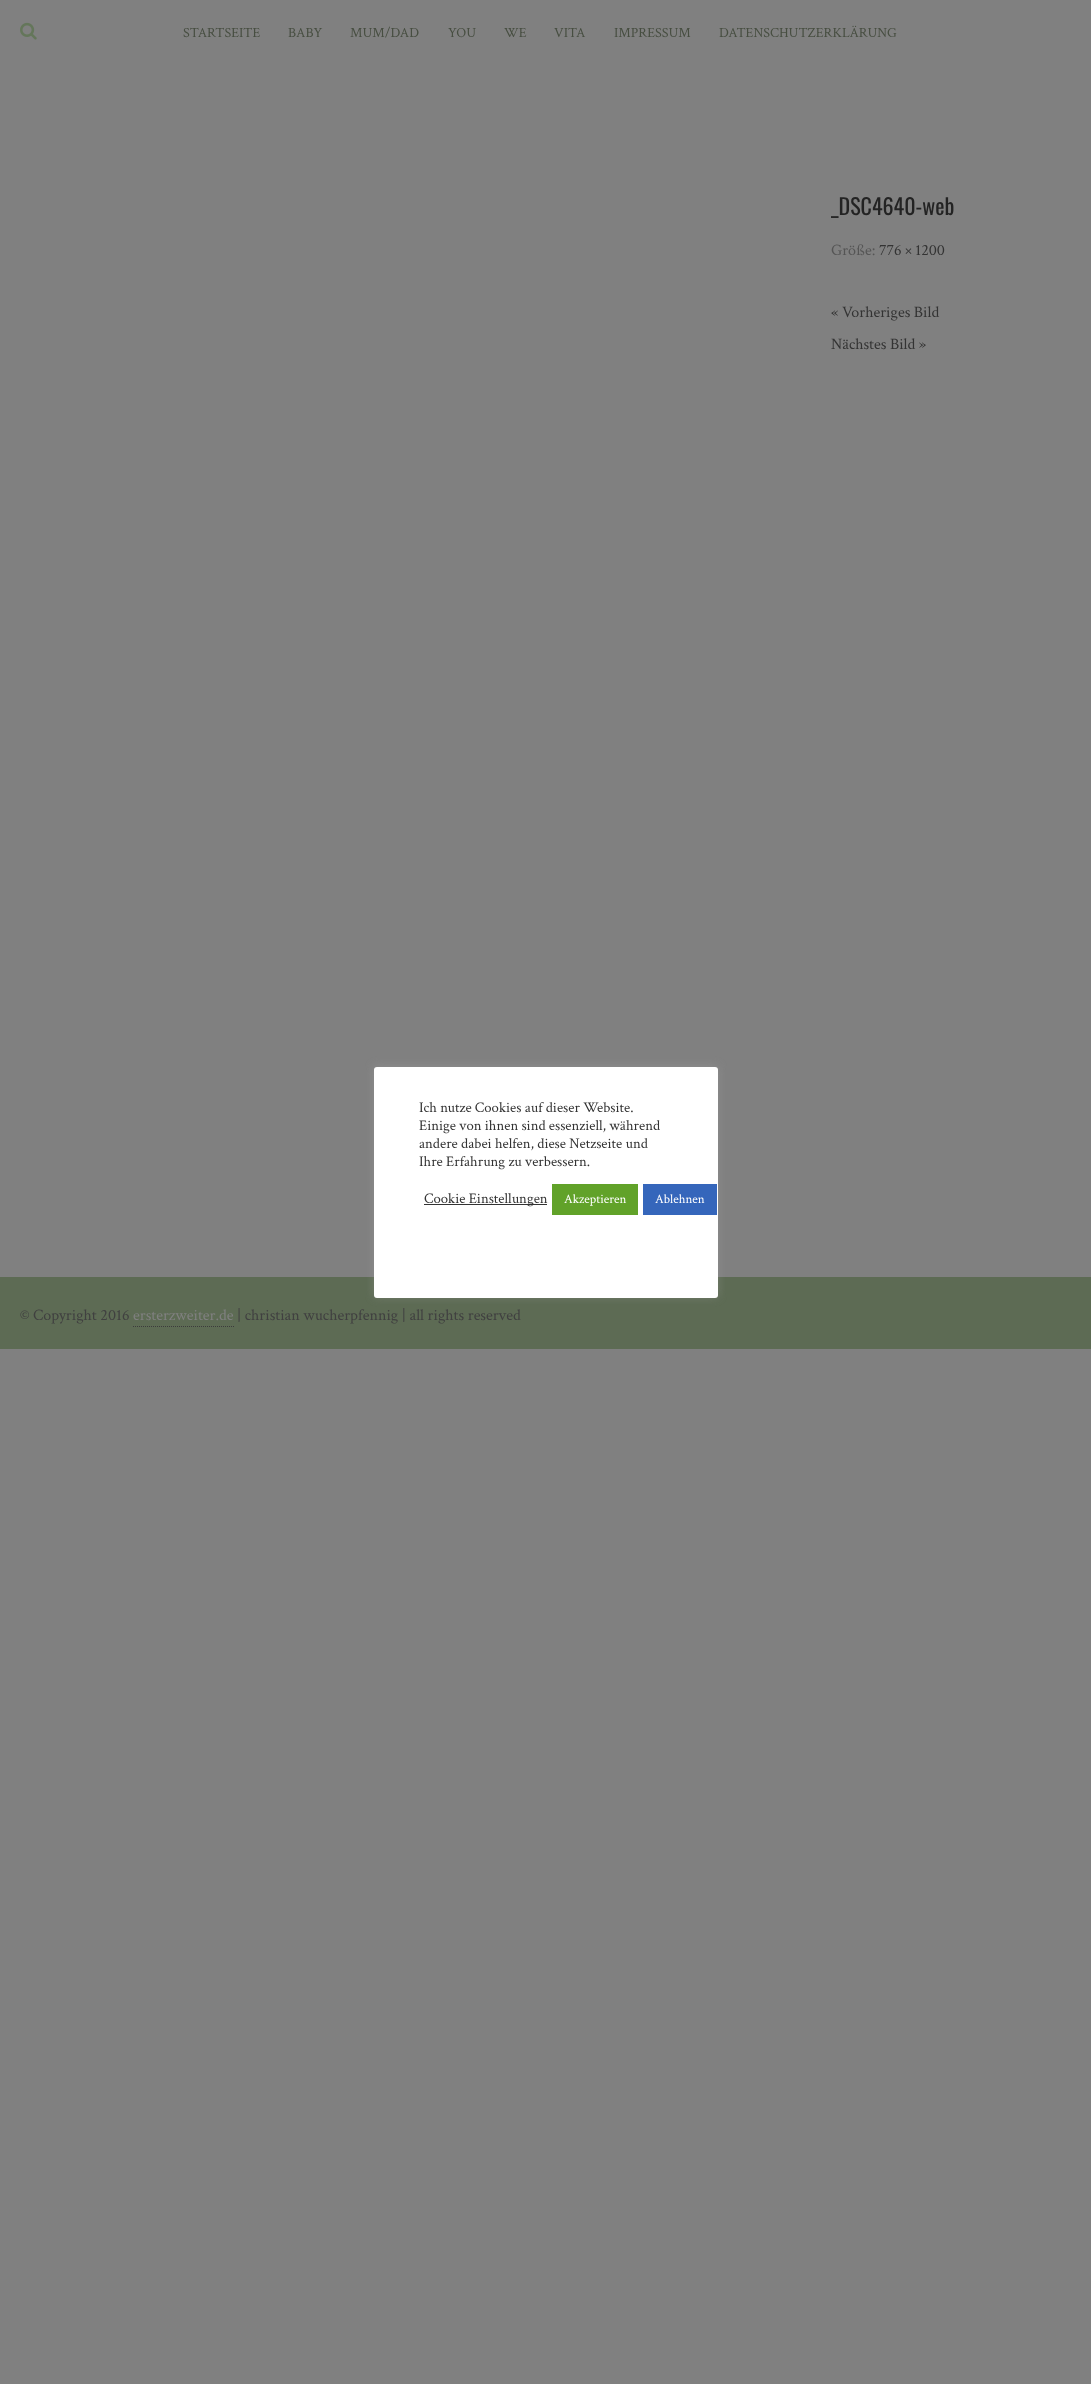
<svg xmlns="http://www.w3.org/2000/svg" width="1091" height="2384">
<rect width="100%" height="100%" fill="#808080"/>
<image x="20" y="22" width="17" height="18" href="media/1.png"/>
<text x="183" y="37" style="font-family:Crimson Text;font-size:14px;fill:#474e41">STARTSEITE</text>
<text x="288" y="37" style="font-family:Crimson Text;font-size:14px;fill:#474e41">BABY</text>
<text x="350" y="37" style="font-family:Crimson Text;font-size:14px;fill:#474e41">MUM/DAD</text>
<text x="448" y="37" style="font-family:Crimson Text;font-size:14px;fill:#474e41">YOU</text>
<text x="504" y="37" style="font-family:Crimson Text;font-size:14px;fill:#474e41">WE</text>
<text x="554" y="37" style="font-family:Crimson Text;font-size:14px;fill:#474e41">VITA</text>
<text x="614" y="37" style="font-family:Crimson Text;font-size:14px;fill:#474e41">IMPRESSUM</text>
<text x="719" y="37" style="font-family:Crimson Text;font-size:14px;fill:#474e41">DATENSCHUTZERKLÄRUNG</text>
<text x="831" y="215" style="font-family:Oswald;font-size:22px;fill:#232323">_DSC4640-web</text>
<text x="831" y="255" style="font-family:Crimson Text;font-size:16px;fill:#555">Größe:</text>
<text x="879" y="255" style="font-family:Crimson Text;font-size:16px;fill:#333">776 × 1200</text>
<text x="831" y="317" style="font-family:Crimson Text;font-size:16px;fill:#333">« Vorheriges Bild</text>
<text x="831" y="349" style="font-family:Crimson Text;font-size:16px;fill:#333">Nächstes Bild »</text>
<rect y="1277" width="1091" height="72" fill="#5d6b54"/>
<text x="20" y="1320" style="font-family:Crimson Text;font-size:16px;fill:#404040">© Copyright 2016</text>
<text x="133" y="1320" style="font-family:Crimson Text;font-size:16px;fill:#808080">ersterzweiter.de</text>
<path d="M133 1326.5h101" fill="none" stroke="#3c3c3c" stroke-dasharray="1 1"/>
<text x="237" y="1320" style="font-family:Crimson Text;font-size:16px;fill:#404040">| christian wucherpfennig | all rights reserved</text>
<rect x="374" y="1066" width="344" height="231" rx="3" fill="#acabab4d" filter="blur(5px)"/>
<rect x="374" y="1067" width="344" height="231" rx="3" fill="#fff"/>
<text x="419" y="1112" style="font-family:Crimson Text;font-size:14.7px;fill:#333">Ich nutze Cookies auf dieser Website.</text>
<text x="419" y="1130" style="font-family:Crimson Text;font-size:14.7px;fill:#333">Einige von ihnen sind essenziell, während</text>
<text x="419" y="1148" style="font-family:Crimson Text;font-size:14.7px;fill:#333">andere dabei helfen, diese Netzseite und</text>
<text x="419" y="1166" style="font-family:Crimson Text;font-size:14.7px;fill:#333">Ihre Erfahrung zu verbessern.</text>
<rect x="424" y="1204" width="123" height="1" fill="#333"/>
<text x="424" y="1203" style="font-family:Crimson Text;font-size:14.7px;fill:#333">Cookie Einstellungen</text>
<rect x="552" y="1184" width="86" height="31" fill="#61a229"/>
<text x="564" y="1203" style="font-family:Crimson Text;font-size:13px;fill:#fff">Akzeptieren</text>
<rect x="643" y="1184" width="74" height="31" fill="#3566bb"/>
<text x="655" y="1203" style="font-family:Crimson Text;font-size:13px;fill:#fff">Ablehnen</text>
</svg>
